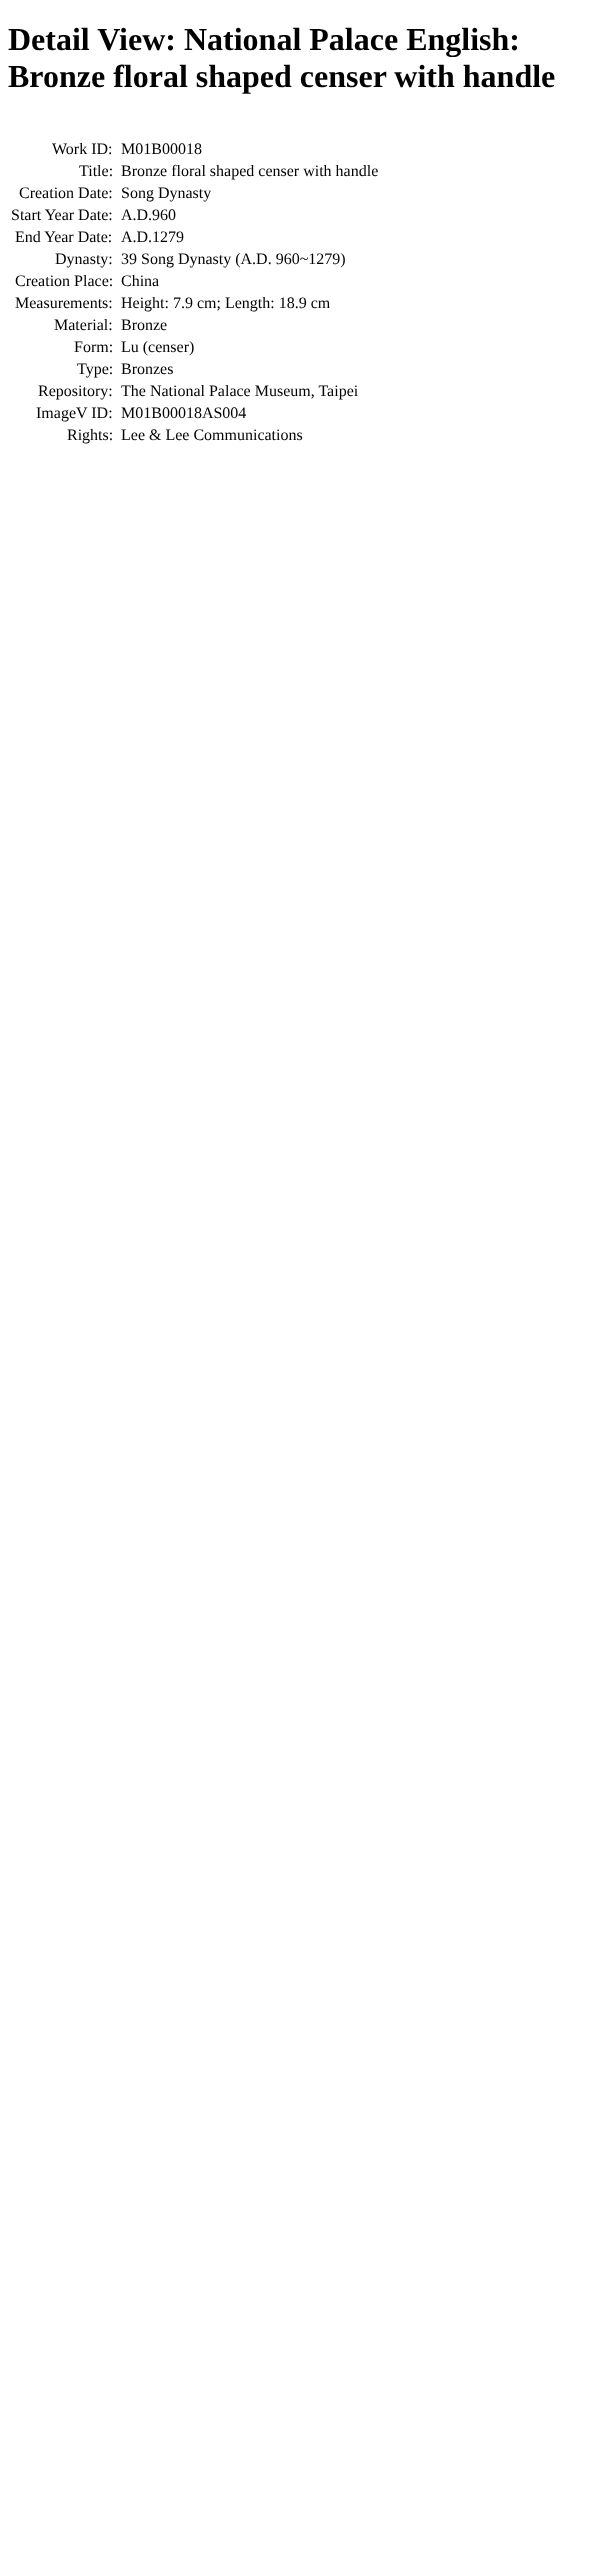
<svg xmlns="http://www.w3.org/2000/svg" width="595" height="2566">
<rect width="100%" height="100%" fill="#fff"/>
<text x="8" y="50" style="font-family:Liberation Serif;font-size:32px;font-weight:bold;fill:#000">Detail View: National Palace English:</text>
<text x="8" y="87" style="font-family:Liberation Serif;font-size:32px;font-weight:bold;fill:#000">Bronze floral shaped censer with handle</text>
<text x="52" y="154" style="font-family:Liberation Serif;font-size:16px;fill:#000">Work ID:</text>
<text x="121" y="154" style="font-family:Liberation Serif;font-size:16px;fill:#000">M01B00018</text>
<text x="79" y="176" style="font-family:Liberation Serif;font-size:16px;fill:#000">Title:</text>
<text x="121" y="176" style="font-family:Liberation Serif;font-size:16px;fill:#000">Bronze floral shaped censer with handle</text>
<text x="19" y="198" style="font-family:Liberation Serif;font-size:16px;fill:#000">Creation Date:</text>
<text x="121" y="198" style="font-family:Liberation Serif;font-size:16px;fill:#000">Song Dynasty</text>
<text x="11" y="220" style="font-family:Liberation Serif;font-size:16px;fill:#000">Start Year Date:</text>
<text x="121" y="220" style="font-family:Liberation Serif;font-size:16px;fill:#000">A.D.960</text>
<text x="15" y="242" style="font-family:Liberation Serif;font-size:16px;fill:#000">End Year Date:</text>
<text x="121" y="242" style="font-family:Liberation Serif;font-size:16px;fill:#000">A.D.1279</text>
<text x="55" y="264" style="font-family:Liberation Serif;font-size:16px;fill:#000">Dynasty:</text>
<text x="121" y="264" style="font-family:Liberation Serif;font-size:16px;fill:#000">39 Song Dynasty (A.D. 960~1279)</text>
<text x="15" y="286" style="font-family:Liberation Serif;font-size:16px;fill:#000">Creation Place:</text>
<text x="121" y="286" style="font-family:Liberation Serif;font-size:16px;fill:#000">China</text>
<text x="15" y="308" style="font-family:Liberation Serif;font-size:16px;fill:#000">Measurements:</text>
<text x="121" y="308" style="font-family:Liberation Serif;font-size:16px;fill:#000">Height: 7.9 cm; Length: 18.9 cm</text>
<text x="54" y="330" style="font-family:Liberation Serif;font-size:16px;fill:#000">Material:</text>
<text x="121" y="330" style="font-family:Liberation Serif;font-size:16px;fill:#000">Bronze</text>
<text x="74" y="352" style="font-family:Liberation Serif;font-size:16px;fill:#000">Form:</text>
<text x="121" y="352" style="font-family:Liberation Serif;font-size:16px;fill:#000">Lu (censer)</text>
<text x="77" y="374" style="font-family:Liberation Serif;font-size:16px;fill:#000">Type:</text>
<text x="121" y="374" style="font-family:Liberation Serif;font-size:16px;fill:#000">Bronzes</text>
<text x="38" y="396" style="font-family:Liberation Serif;font-size:16px;fill:#000">Repository:</text>
<text x="121" y="396" style="font-family:Liberation Serif;font-size:16px;fill:#000">The National Palace Museum, Taipei</text>
<text x="36" y="418" style="font-family:Liberation Serif;font-size:16px;fill:#000">ImageV ID:</text>
<text x="121" y="418" style="font-family:Liberation Serif;font-size:16px;fill:#000">M01B00018AS004</text>
<text x="67" y="440" style="font-family:Liberation Serif;font-size:16px;fill:#000">Rights:</text>
<text x="121" y="440" style="font-family:Liberation Serif;font-size:16px;fill:#000">Lee &amp; Lee Communications</text>
</svg>
